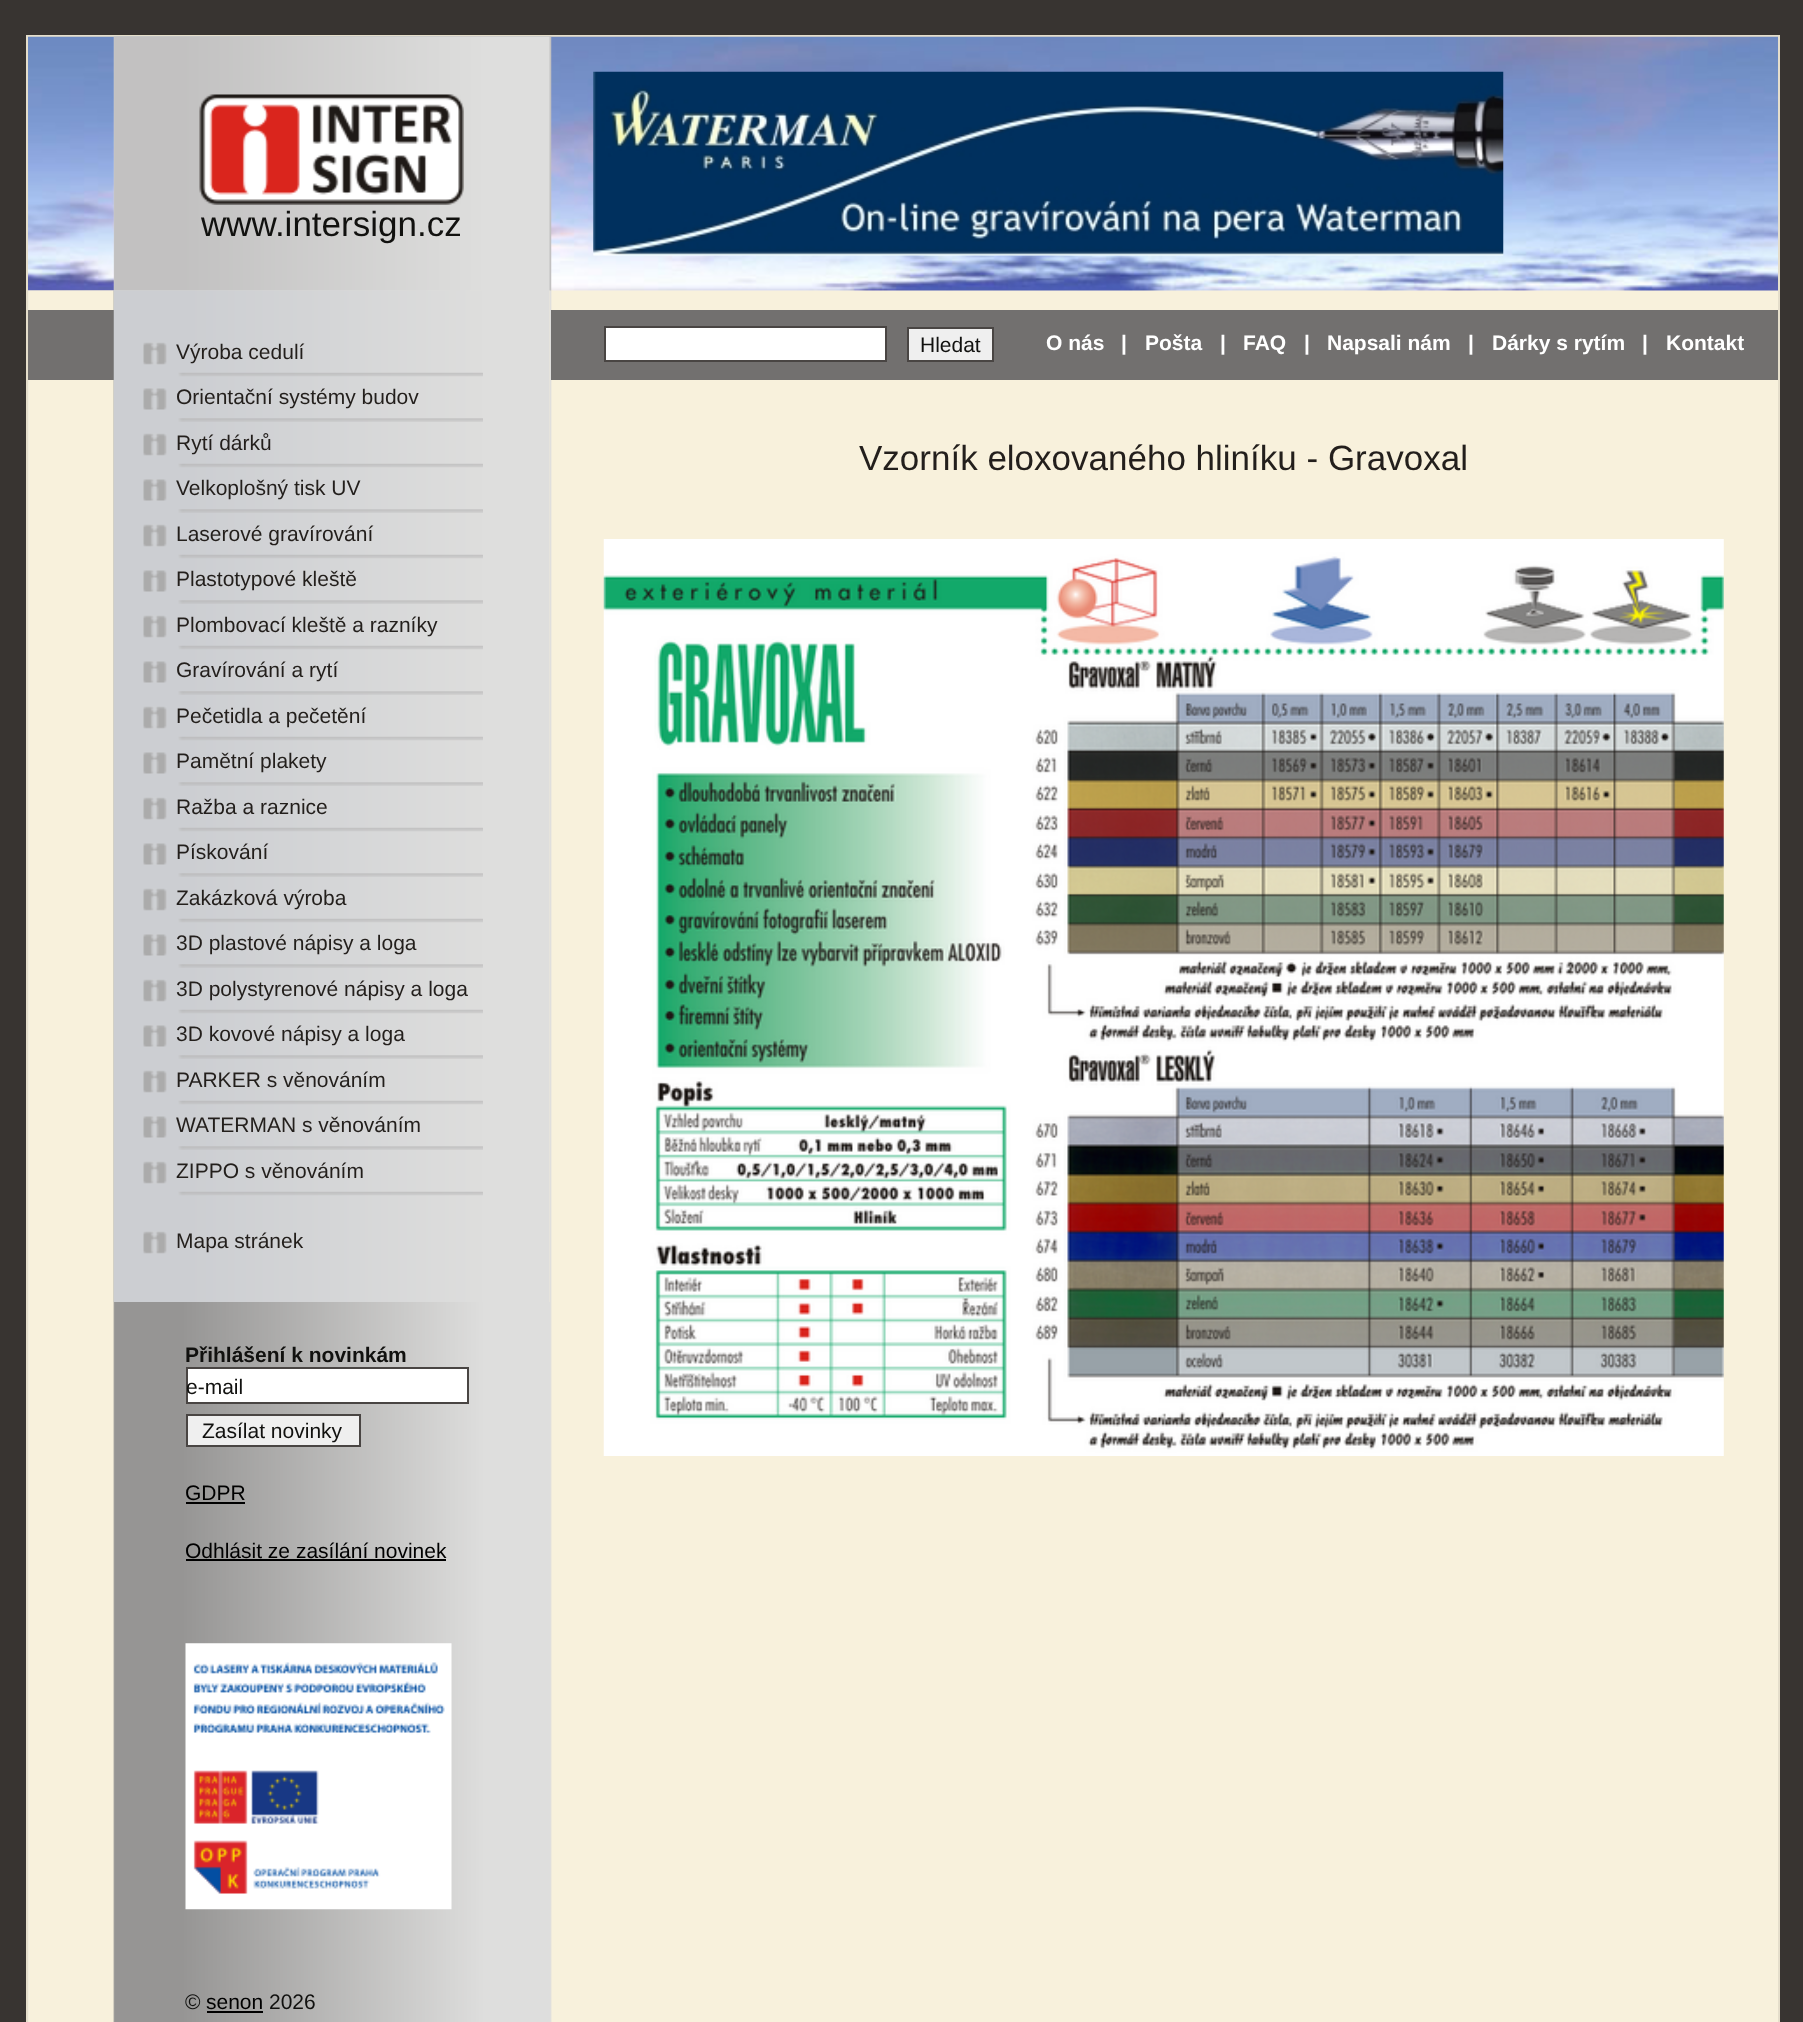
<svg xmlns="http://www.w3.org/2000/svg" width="1803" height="2022">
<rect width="100%" height="100%" fill="#383431"/>
<rect x="28" y="290" width="1750" height="1732" fill="#f8f1dc"/>
<rect x="27" y="36" width="1752" height="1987" fill="none" stroke="#e5decb" stroke-width="2"/>
<image x="28" y="36" width="1750" height="255" href="media/1.png"/>
<image x="28" y="290" width="525" height="1732" href="media/5.png"/>
<rect x="114" y="290" width="437" height="1" fill="#dededd"/>
<image x="113" y="36" width="439" height="255" href="media/2.png"/>
<image x="199" y="94" width="265" height="111" href="media/3.png"/>
<text x="201" y="236" style="font-family:Liberation Sans;font-size:35px;fill:#11110f">www.intersign.cz</text>
<image x="593" y="71" width="911" height="185" href="media/4.png"/>
<rect x="28" y="310" width="86" height="70" fill="#72706f"/>
<image x="113" y="290" width="437" height="1012" href="media/6.png"/>
<image x="143" y="342" width="24" height="23" href="media/7.png"/>
<text x="176" y="359" style="font-family:Liberation Sans;font-size:21px;fill:#231f1c">Výroba cedulí</text>
<image x="178" y="372" width="305" height="5" href="media/8.png"/>
<image x="143" y="388" width="24" height="22" href="media/9.png"/>
<text x="176" y="404" style="font-family:Liberation Sans;font-size:21px;fill:#231f1c">Orientační systémy budov</text>
<image x="178" y="418" width="305" height="4" href="media/10.png"/>
<image x="143" y="433" width="24" height="23" href="media/7.png"/>
<text x="176" y="450" style="font-family:Liberation Sans;font-size:21px;fill:#231f1c">Rytí dárků</text>
<image x="178" y="463" width="305" height="5" href="media/8.png"/>
<image x="143" y="479" width="24" height="22" href="media/9.png"/>
<text x="176" y="495" style="font-family:Liberation Sans;font-size:21px;fill:#231f1c">Velkoplošný tisk UV</text>
<image x="178" y="509" width="305" height="4" href="media/10.png"/>
<image x="143" y="524" width="24" height="23" href="media/7.png"/>
<text x="176" y="541" style="font-family:Liberation Sans;font-size:21px;fill:#231f1c">Laserové gravírování</text>
<image x="178" y="554" width="305" height="5" href="media/8.png"/>
<image x="143" y="570" width="24" height="22" href="media/9.png"/>
<text x="176" y="586" style="font-family:Liberation Sans;font-size:21px;fill:#231f1c">Plastotypové kleště</text>
<image x="178" y="600" width="305" height="4" href="media/10.png"/>
<image x="143" y="615" width="24" height="23" href="media/7.png"/>
<text x="176" y="632" style="font-family:Liberation Sans;font-size:21px;fill:#231f1c">Plombovací kleště a razníky</text>
<image x="178" y="645" width="305" height="5" href="media/8.png"/>
<image x="143" y="661" width="24" height="22" href="media/9.png"/>
<text x="176" y="677" style="font-family:Liberation Sans;font-size:21px;fill:#231f1c">Gravírování a rytí</text>
<image x="178" y="691" width="305" height="4" href="media/10.png"/>
<image x="143" y="706" width="24" height="23" href="media/7.png"/>
<text x="176" y="723" style="font-family:Liberation Sans;font-size:21px;fill:#231f1c">Pečetidla a pečetění</text>
<image x="178" y="736" width="305" height="5" href="media/8.png"/>
<image x="143" y="752" width="24" height="22" href="media/9.png"/>
<text x="176" y="768" style="font-family:Liberation Sans;font-size:21px;fill:#231f1c">Pamětní plakety</text>
<image x="178" y="782" width="305" height="4" href="media/10.png"/>
<image x="143" y="797" width="24" height="23" href="media/7.png"/>
<text x="176" y="814" style="font-family:Liberation Sans;font-size:21px;fill:#231f1c">Ražba a raznice</text>
<image x="178" y="827" width="305" height="5" href="media/8.png"/>
<image x="143" y="843" width="24" height="22" href="media/9.png"/>
<text x="176" y="859" style="font-family:Liberation Sans;font-size:21px;fill:#231f1c">Pískování</text>
<image x="178" y="873" width="305" height="4" href="media/10.png"/>
<image x="143" y="888" width="24" height="23" href="media/7.png"/>
<text x="176" y="905" style="font-family:Liberation Sans;font-size:21px;fill:#231f1c">Zakázková výroba</text>
<image x="178" y="918" width="305" height="5" href="media/8.png"/>
<image x="143" y="934" width="24" height="22" href="media/9.png"/>
<text x="176" y="950" style="font-family:Liberation Sans;font-size:21px;fill:#231f1c">3D plastové nápisy a loga</text>
<image x="178" y="964" width="305" height="4" href="media/10.png"/>
<image x="143" y="979" width="24" height="23" href="media/7.png"/>
<text x="176" y="996" style="font-family:Liberation Sans;font-size:21px;fill:#231f1c">3D polystyrenové nápisy a loga</text>
<image x="178" y="1009" width="305" height="5" href="media/8.png"/>
<image x="143" y="1025" width="24" height="22" href="media/9.png"/>
<text x="176" y="1041" style="font-family:Liberation Sans;font-size:21px;fill:#231f1c">3D kovové nápisy a loga</text>
<image x="178" y="1055" width="305" height="4" href="media/10.png"/>
<image x="143" y="1070" width="24" height="23" href="media/7.png"/>
<text x="176" y="1087" style="font-family:Liberation Sans;font-size:21px;fill:#231f1c">PARKER s věnováním</text>
<image x="178" y="1100" width="305" height="5" href="media/8.png"/>
<image x="143" y="1116" width="24" height="22" href="media/9.png"/>
<text x="176" y="1132" style="font-family:Liberation Sans;font-size:21px;fill:#231f1c">WATERMAN s věnováním</text>
<image x="178" y="1146" width="305" height="4" href="media/10.png"/>
<image x="143" y="1161" width="24" height="23" href="media/7.png"/>
<text x="176" y="1178" style="font-family:Liberation Sans;font-size:21px;fill:#231f1c">ZIPPO s věnováním</text>
<image x="178" y="1191" width="305" height="5" href="media/8.png"/>
<image x="143" y="1231" width="24" height="23" href="media/7.png"/>
<text x="176" y="1248" style="font-family:Liberation Sans;font-size:21px;fill:#231f1c">Mapa stránek</text>
<text x="185" y="1362" style="font-family:Liberation Sans;font-size:21px;font-weight:bold;fill:#11110f">Přihlášení k novinkám</text>
<rect x="187" y="1368" width="281" height="35" fill="#fff" stroke="#494543" stroke-width="2"/>
<text x="186" y="1394" style="font-family:Liberation Sans;font-size:21px;fill:#11110f">e-mail</text>
<rect x="187" y="1415" width="173" height="31" fill="#efefef" stroke="#494543" stroke-width="2"/>
<text x="202" y="1438" style="font-family:Liberation Sans;font-size:21px;fill:#11110f">Zasílat novinky</text>
<text x="185" y="1500" style="font-family:Liberation Sans;font-size:21px;fill:#000">GDPR</text>
<rect x="186" y="1502" width="59" height="2" fill="#000"/>
<text x="185" y="1558" style="font-family:Liberation Sans;font-size:21px;fill:#000">Odhlásit ze zasílání novinek</text>
<rect x="186" y="1559" width="260" height="2" fill="#000"/>
<image x="185" y="1643" width="267" height="267" href="media/11.png"/>
<text x="185" y="2009" style="font-family:Liberation Sans;font-size:21px;fill:#11110f">©</text>
<text x="206" y="2009" style="font-family:Liberation Sans;font-size:21px;fill:#000">senon</text>
<rect x="207" y="2011" width="56" height="2" fill="#000"/>
<text x="269" y="2009" style="font-family:Liberation Sans;font-size:21px;fill:#11110f">2026</text>
<rect x="551" y="310" width="1227" height="70" fill="#72706f"/>
<rect x="605" y="327" width="281" height="34" fill="#fff" stroke="#494543" stroke-width="2"/>
<rect x="908" y="328" width="85" height="33" fill="#efefef" stroke="#494543" stroke-width="2"/>
<text x="920" y="352" style="font-family:Liberation Sans;font-size:21px;fill:#11110f">Hledat</text>
<text x="1046" y="350" style="font-family:Liberation Sans;font-size:21px;font-weight:bold;fill:#fff">O nás</text>
<text x="1121" y="350" style="font-family:Liberation Sans;font-size:21px;font-weight:bold;fill:#fff">|</text>
<text x="1145" y="350" style="font-family:Liberation Sans;font-size:21px;font-weight:bold;fill:#fff">Pošta</text>
<text x="1220" y="350" style="font-family:Liberation Sans;font-size:21px;font-weight:bold;fill:#fff">|</text>
<text x="1243" y="350" style="font-family:Liberation Sans;font-size:21px;font-weight:bold;fill:#fff">FAQ</text>
<text x="1304" y="350" style="font-family:Liberation Sans;font-size:21px;font-weight:bold;fill:#fff">|</text>
<text x="1327" y="350" style="font-family:Liberation Sans;font-size:21px;font-weight:bold;fill:#fff">Napsali nám</text>
<text x="1468" y="350" style="font-family:Liberation Sans;font-size:21px;font-weight:bold;fill:#fff">|</text>
<text x="1492" y="350" style="font-family:Liberation Sans;font-size:21px;font-weight:bold;fill:#fff">Dárky s rytím</text>
<text x="1642" y="350" style="font-family:Liberation Sans;font-size:21px;font-weight:bold;fill:#fff">|</text>
<text x="1666" y="350" style="font-family:Liberation Sans;font-size:21px;font-weight:bold;fill:#fff">Kontakt</text>
<text x="859" y="470" style="font-family:Liberation Sans;font-size:35px;fill:#231f1c">Vzorník eloxovaného hliníku - Gravoxal</text>
<image x="603" y="539" width="1121" height="917" href="media/12.png"/>
</svg>
